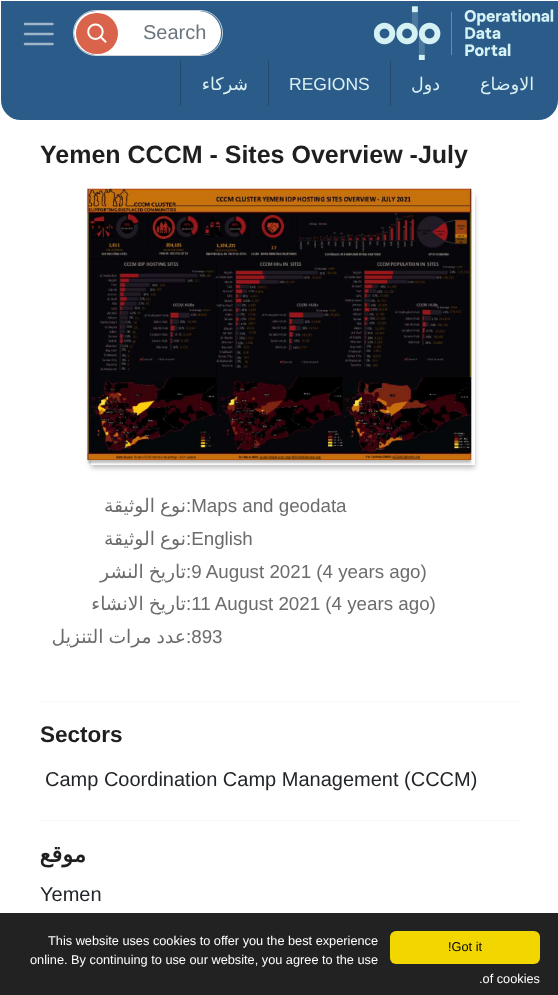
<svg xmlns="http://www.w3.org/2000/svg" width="558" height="995">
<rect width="100%" height="100%" fill="#fff"/>
<path d="M3 3h553v97c0 10-8 18-18 18h-517c-10 0-18-8-18-18z" fill="#2a5b89" stroke="#2a5b89" stroke-width="4"/>
<path d="M25 24h27.5m-27.5 10h27.5m-27.5 10h27.5" fill="none" stroke="#9fb5ca" stroke-width="2.5" stroke-linecap="round"/>
<rect x="74" y="11" width="147" height="44" rx="22" fill="#fff"/>
<rect x="73.5" y="10.5" width="149" height="45" rx="22.5" fill="none" stroke="#ced4da"/>
<rect x="76" y="13" width="42" height="41" rx="20.5" fill="#da634b"/>
<image x="87" y="23" width="20" height="20" href="media/1.png"/>
<text x="143" y="39" style="font-family:Liberation Sans;font-size:20px;fill:#6c757d">Search</text>
<image x="374" y="6" width="180" height="54" href="media/2.png"/>
<rect x="180" y="61" width="1" height="45" fill="#22496e"/>
<text x="248" y="90" style="font-family:DejaVu Sans;font-size:17.5px;direction:rtl;fill:#daf0f3">شركاء</text>
<rect x="268" y="61" width="1" height="45" fill="#22496e"/>
<text x="289" y="90" style="font-family:Liberation Sans;font-size:17.5px;fill:#daf0f3">REGIONS</text>
<rect x="390" y="61" width="1" height="45" fill="#22496e"/>
<text x="440" y="90" style="font-family:DejaVu Sans;font-size:17.5px;direction:rtl;fill:#daf0f3">دول</text>
<text x="534" y="90" style="font-family:DejaVu Sans;font-size:17.5px;direction:rtl;fill:#daf0f3">الاوضاع</text>
<text x="40" y="163" style="font-family:Liberation Sans;font-size:25px;font-weight:bold;fill:#1f1f1f">Yemen CCCM - Sites Overview -July</text>
<rect x="91" y="196" width="384" height="272" fill="#00000040" filter="blur(2.5px)"/>
<rect x="91" y="194" width="384" height="271" fill="#fff"/>
<rect x="88" y="191" width="383" height="272" fill="#00000040" filter="blur(1px)"/>
<image x="87" y="188" width="385" height="272" href="media/3.png"/>
<text x="186" y="512" word-spacing="-1" style="font-family:DejaVu Sans;font-size:18.75px;direction:rtl;fill:#6c6c6c">نوع الوثيقة</text>
<text x="186" y="512" style="font-family:Liberation Sans;font-size:18.75px;fill:#6c6c6c">:Maps and geodata</text>
<text x="186" y="545" word-spacing="-1" style="font-family:DejaVu Sans;font-size:18.75px;direction:rtl;fill:#6c6c6c">نوع الوثيقة</text>
<text x="186" y="545" style="font-family:Liberation Sans;font-size:18.75px;fill:#6c6c6c">:English</text>
<text x="186" y="578" word-spacing="-1" style="font-family:DejaVu Sans;font-size:18.75px;direction:rtl;fill:#6c6c6c">تاريخ النشر</text>
<text x="186" y="578" style="font-family:Liberation Sans;font-size:18.75px;fill:#6c6c6c">:9 August 2021 (4 years ago)</text>
<text x="186" y="610" word-spacing="-1" style="font-family:DejaVu Sans;font-size:18.75px;direction:rtl;fill:#6c6c6c">تاريخ الانشاء</text>
<text x="186" y="610" style="font-family:Liberation Sans;font-size:18.75px;fill:#6c6c6c">:11 August 2021 (4 years ago)</text>
<text x="186" y="643" word-spacing="-1" style="font-family:DejaVu Sans;font-size:18.75px;direction:rtl;fill:#6c6c6c">عدد مرات التنزيل</text>
<text x="186" y="643" style="font-family:Liberation Sans;font-size:18.75px;fill:#6c6c6c">:893</text>
<rect x="40" y="701" width="479" height="1" fill="#f9f9f9"/>
<text x="40" y="742" style="font-family:Liberation Sans;font-size:22.5px;font-weight:bold;fill:#1f1f1f">Sectors</text>
<text x="45" y="786" style="font-family:Liberation Sans;font-size:20px;fill:#212529">Camp Coordination Camp Management (CCCM)</text>
<rect x="40" y="820" width="479" height="1" fill="#f9f9f9"/>
<text x="86" y="862" style="font-family:DejaVu Sans;font-size:22.5px;font-weight:bold;direction:rtl;fill:#1f1f1f">موقع</text>
<text x="40" y="901" style="font-family:Liberation Sans;font-size:20px;fill:#212529">Yemen</text>
<rect y="913" width="558" height="82" fill="#222"/>
<text x="48" y="945" style="font-family:Liberation Sans;font-size:12.75px;fill:#fff">This website uses cookies to offer you the best experience</text>
<text x="30" y="964" style="font-family:Liberation Sans;font-size:12.75px;fill:#fff">online. By continuing to use our website, you agree to the use</text>
<text x="479" y="983" style="font-family:Liberation Sans;font-size:12.75px;fill:#fff">.of cookies</text>
<rect x="390" y="931" width="150" height="33" rx="6" fill="#f1d600"/>
<text x="448" y="951" style="font-family:Liberation Sans;font-size:12.75px;fill:#000">!Got it</text>
</svg>
